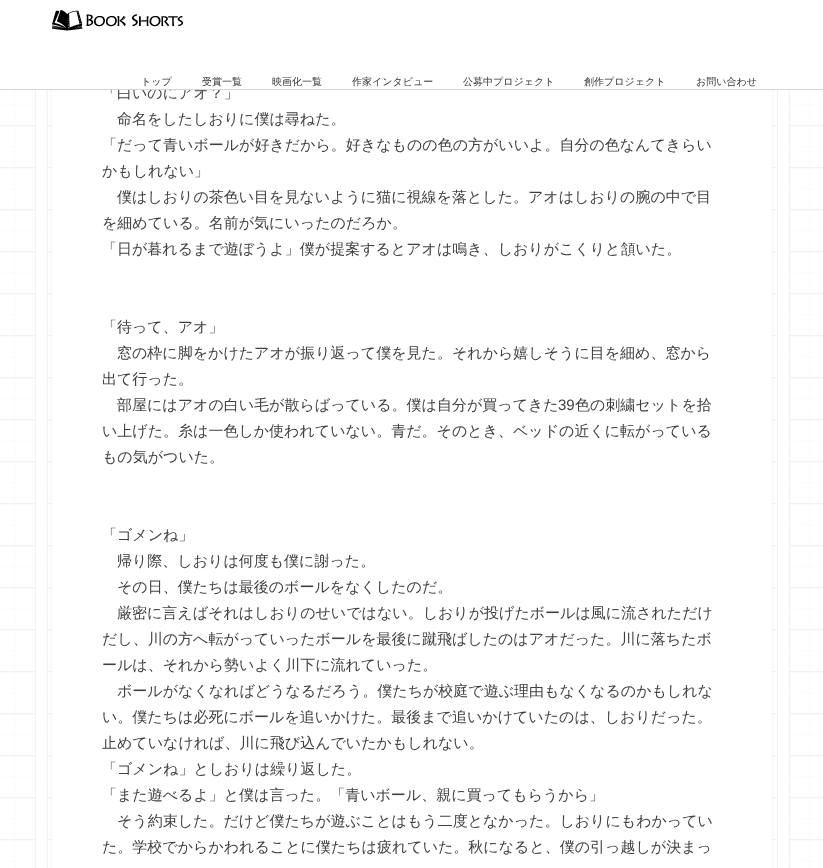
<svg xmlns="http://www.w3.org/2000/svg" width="823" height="868">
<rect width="100%" height="100%" fill="#fff"/>
<image x="0" y="90" width="823" height="778" href="media/1.png"/>
<rect x="52" y="-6" width="720" height="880" rx="3" fill="#00000014" filter="blur(1px)"/>
<path d="M55-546h714c2 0 3 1 3 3v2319c0 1-1 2-3 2h-714c-2 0-3-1-3-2v-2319c0-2 1-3 3-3z" fill="#fff"/>
<text x="102" y="98" style="font-family:WenQuanYi Zen Hei;font-size:15px;font-weight:500;fill:#403f3d">「白いのにアオ？」</text>
<rect x="51" width="722" height="89" fill="#fff"/>
<rect y="89" width="823" height="1" fill="#d5d5d5"/>
<image x="52" y="10" width="131" height="21" href="media/2.png"/>
<text x="141" y="85" style="font-family:WenQuanYi Zen Hei;font-size:10px;font-weight:500;fill:#333">トップ</text>
<text x="202" y="85" style="font-family:WenQuanYi Zen Hei;font-size:10px;font-weight:500;fill:#333">受賞一覧</text>
<text x="272" y="85" style="font-family:WenQuanYi Zen Hei;font-size:10px;font-weight:500;fill:#333">映画化一覧</text>
<text x="352" y="85" style="font-family:WenQuanYi Zen Hei;font-size:10px;font-weight:500;fill:#333">作家インタビュー</text>
<text x="463" y="85" style="font-family:WenQuanYi Zen Hei;font-size:10px;font-weight:500;fill:#333">公募中プロジェクト</text>
<text x="584" y="85" style="font-family:WenQuanYi Zen Hei;font-size:10px;font-weight:500;fill:#333">創作プロジェクト</text>
<text x="696" y="85" style="font-family:WenQuanYi Zen Hei;font-size:10px;font-weight:500;fill:#333">お問い合わせ</text>
<text x="117" y="124" style="font-family:WenQuanYi Zen Hei;font-size:15px;font-weight:500;fill:#403f3d">命名をしたしおりに僕は尋ねた。</text>
<text x="102" y="150" style="font-family:WenQuanYi Zen Hei;font-size:15px;font-weight:500;fill:#403f3d">「だって青いボールが好きだから。好きなものの色の方がいいよ。自分の色なんてきらい</text>
<text x="102" y="176" style="font-family:WenQuanYi Zen Hei;font-size:15px;font-weight:500;fill:#403f3d">かもしれない」</text>
<text x="117" y="202" style="font-family:WenQuanYi Zen Hei;font-size:15px;font-weight:500;fill:#403f3d">僕はしおりの茶色い目を見ないように猫に視線を落とした。アオはしおりの腕の中で目</text>
<text x="102" y="228" style="font-family:WenQuanYi Zen Hei;font-size:15px;font-weight:500;fill:#403f3d">を細めている。名前が気にいったのだろか。</text>
<text x="102" y="254" style="font-family:WenQuanYi Zen Hei;font-size:15px;font-weight:500;fill:#403f3d">「日が暮れるまで遊ぼうよ」僕が提案するとアオは鳴き、しおりがこくりと頷いた。</text>
<text x="102" y="332" style="font-family:WenQuanYi Zen Hei;font-size:15px;font-weight:500;fill:#403f3d">「待って、アオ」</text>
<text x="117" y="358" style="font-family:WenQuanYi Zen Hei;font-size:15px;font-weight:500;fill:#403f3d">窓の枠に脚をかけたアオが振り返って僕を見た。それから嬉しそうに目を細め、窓から</text>
<text x="102" y="384" style="font-family:WenQuanYi Zen Hei;font-size:15px;font-weight:500;fill:#403f3d">出て行った。</text>
<text x="117" y="410" style="font-family:WenQuanYi Zen Hei;font-size:15px;font-weight:500;fill:#403f3d">部屋にはアオの白い毛が散らばっている。僕は自分が買ってきた</text>
<text x="558" y="410" style="font-family:Liberation Sans;font-size:15px;fill:#403f3d">39</text>
<text x="575" y="410" style="font-family:WenQuanYi Zen Hei;font-size:15px;font-weight:500;fill:#403f3d">色の刺繍セットを拾</text>
<text x="102" y="436" style="font-family:WenQuanYi Zen Hei;font-size:15px;font-weight:500;fill:#403f3d">い上げた。糸は一色しか使われていない。青だ。そのとき、ベッドの近くに転がっている</text>
<text x="102" y="462" style="font-family:WenQuanYi Zen Hei;font-size:15px;font-weight:500;fill:#403f3d">もの気がついた。</text>
<text x="102" y="540" style="font-family:WenQuanYi Zen Hei;font-size:15px;font-weight:500;fill:#403f3d">「ゴメンね」</text>
<text x="117" y="566" style="font-family:WenQuanYi Zen Hei;font-size:15px;font-weight:500;fill:#403f3d">帰り際、しおりは何度も僕に謝った。</text>
<text x="117" y="592" style="font-family:WenQuanYi Zen Hei;font-size:15px;font-weight:500;fill:#403f3d">その日、僕たちは最後のボールをなくしたのだ。</text>
<text x="117" y="618" style="font-family:WenQuanYi Zen Hei;font-size:15px;font-weight:500;fill:#403f3d">厳密に言えばそれはしおりのせいではない。しおりが投げたボールは風に流されただけ</text>
<text x="102" y="644" style="font-family:WenQuanYi Zen Hei;font-size:15px;font-weight:500;fill:#403f3d">だし、川の方へ転がっていったボールを最後に蹴飛ばしたのはアオだった。川に落ちたボ</text>
<text x="102" y="670" style="font-family:WenQuanYi Zen Hei;font-size:15px;font-weight:500;fill:#403f3d">ールは、それから勢いよく川下に流れていった。</text>
<text x="117" y="696" style="font-family:WenQuanYi Zen Hei;font-size:15px;font-weight:500;fill:#403f3d">ボールがなくなればどうなるだろう。僕たちが校庭で遊ぶ理由もなくなるのかもしれな</text>
<text x="102" y="722" style="font-family:WenQuanYi Zen Hei;font-size:15px;font-weight:500;fill:#403f3d">い。僕たちは必死にボールを追いかけた。最後まで追いかけていたのは、しおりだった。</text>
<text x="102" y="748" style="font-family:WenQuanYi Zen Hei;font-size:15px;font-weight:500;fill:#403f3d">止めていなければ、川に飛び込んでいたかもしれない。</text>
<text x="102" y="774" style="font-family:WenQuanYi Zen Hei;font-size:15px;font-weight:500;fill:#403f3d">「ゴメンね」としおりは繰り返した。</text>
<text x="102" y="800" style="font-family:WenQuanYi Zen Hei;font-size:15px;font-weight:500;fill:#403f3d">「また遊べるよ」と僕は言った。「青いボール、親に買ってもらうから」</text>
<text x="117" y="826" style="font-family:WenQuanYi Zen Hei;font-size:15px;font-weight:500;fill:#403f3d">そう約束した。だけど僕たちが遊ぶことはもう二度となかった。しおりにもわかってい</text>
<text x="102" y="852" style="font-family:WenQuanYi Zen Hei;font-size:15px;font-weight:500;fill:#403f3d">た。学校でからかわれることに僕たちは疲れていた。秋になると、僕の引っ越しが決まっ</text>
</svg>
